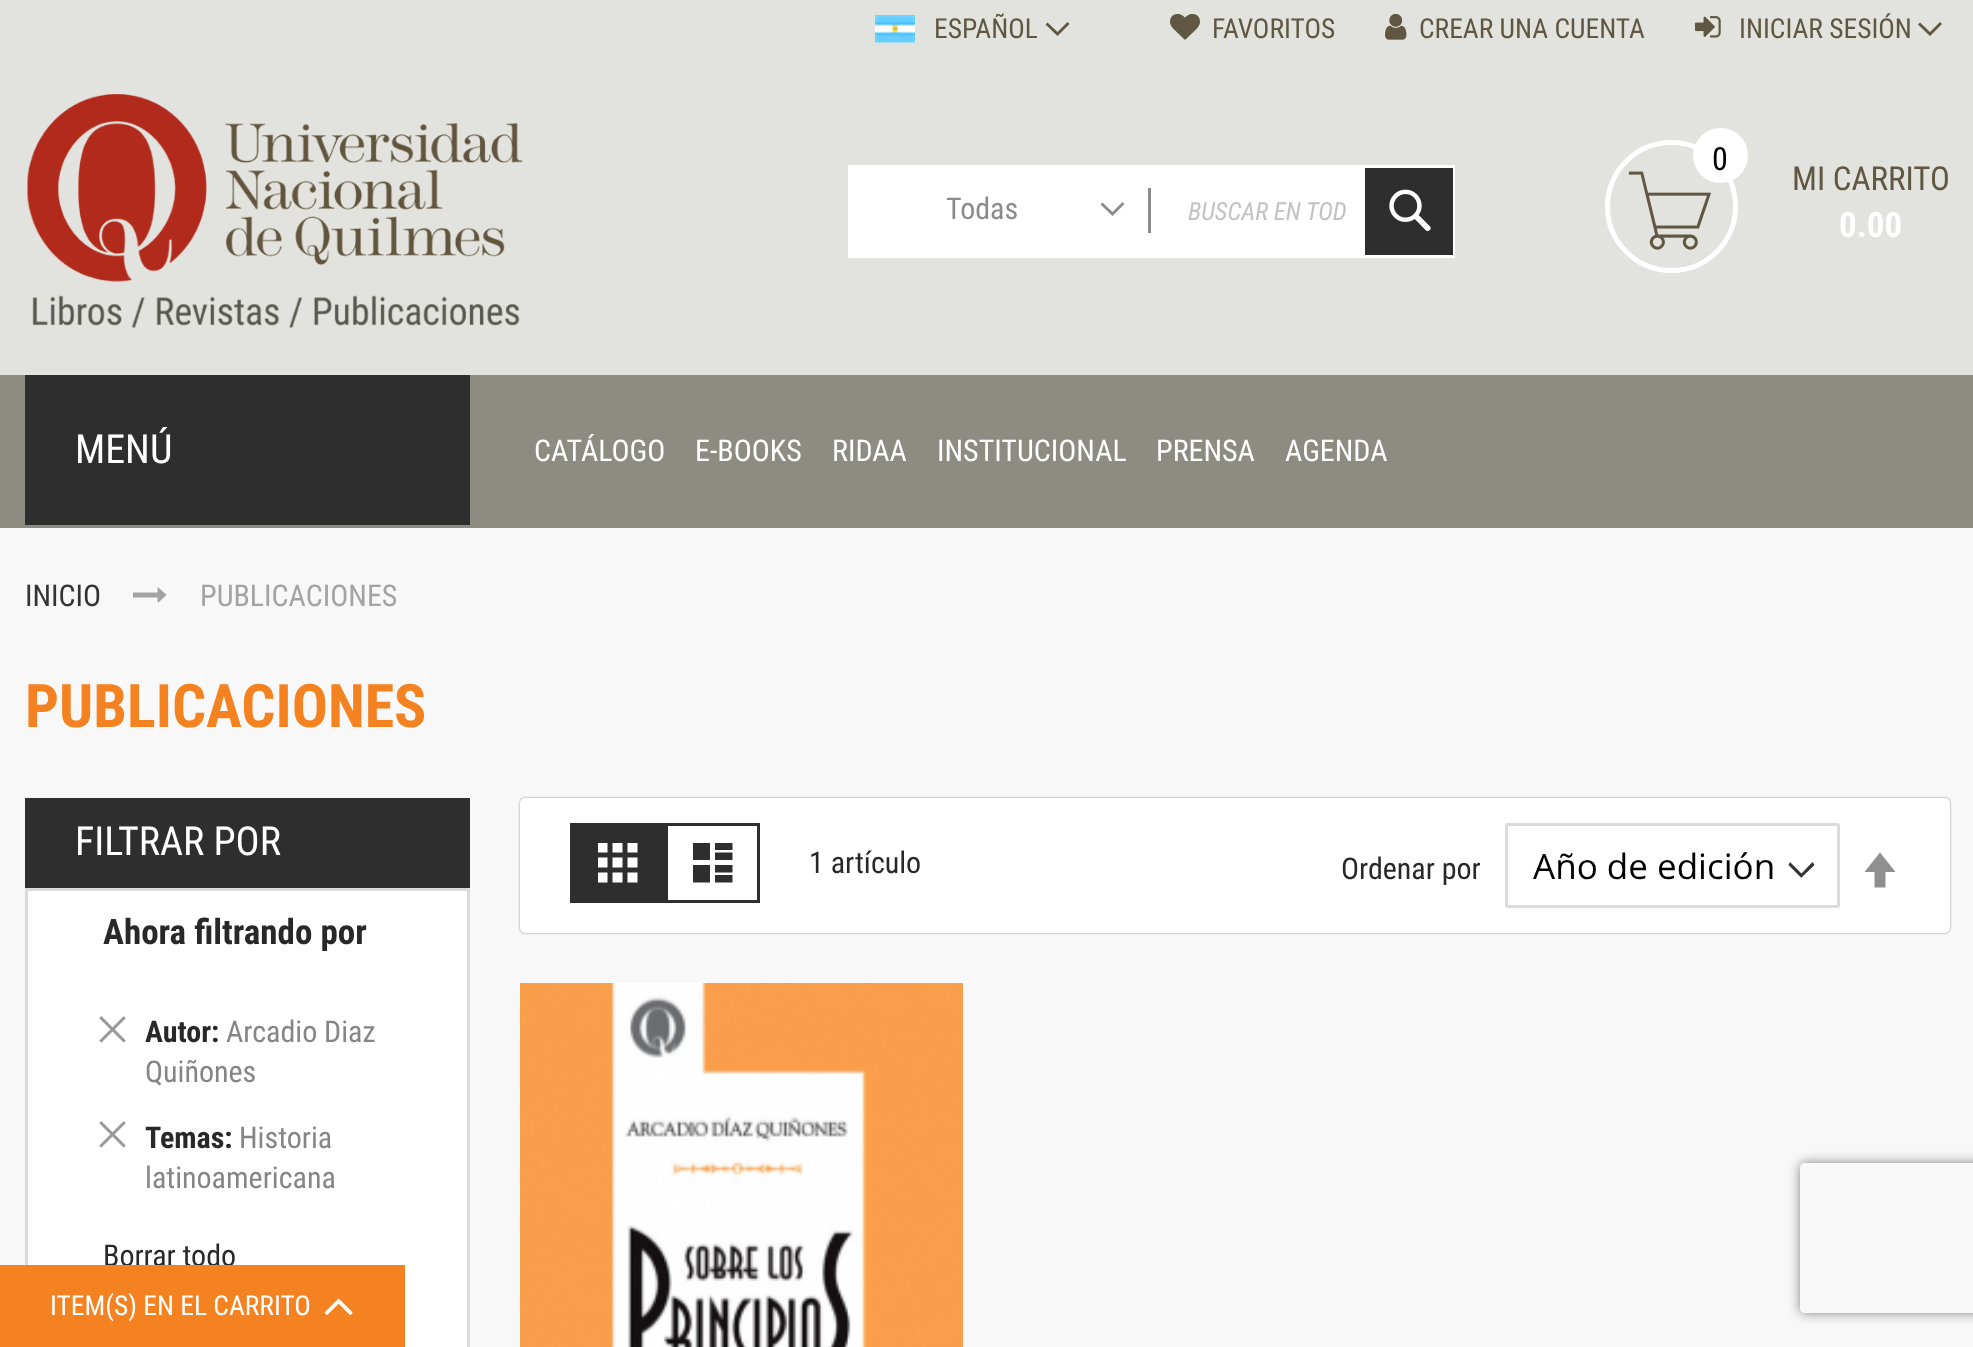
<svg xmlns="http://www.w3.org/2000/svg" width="1973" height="1347">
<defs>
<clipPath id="clip1"><path d="M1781 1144h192v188h-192zm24 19h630c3 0 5 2 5 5v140c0 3-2 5-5 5h-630c-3 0-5-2-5-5v-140c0-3 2-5 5-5z" clip-rule="evenodd"/></clipPath>
</defs>
<rect width="100%" height="100%" fill="#f8f8f8"/>
<rect width="1973" height="375" fill="#e2e3de"/>
<image x="875" y="15" width="40" height="28" href="media/1.png"/>
<text x="934" y="38" style="font-family:Roboto Condensed;font-size:27.5px;fill:#5f5742">ESPAÑOL</text>
<path d="M1057.5 32l-10-9.5l-2 2l12 11.5l12-12l-2-2z" fill="#5f5742"/>
<image x="1170" y="13" width="30" height="27" href="media/2.png"/>
<text x="1212" y="38" style="font-family:Roboto Condensed;font-size:27.5px;fill:#5f5742">FAVORITOS</text>
<image x="1385" y="13" width="22" height="27" href="media/3.png"/>
<text x="1419" y="38" style="font-family:Roboto Condensed;font-size:27.5px;fill:#5f5742">CREAR UNA CUENTA</text>
<image x="1695" y="16" width="26" height="22" href="media/4.png"/>
<text x="1739" y="38" style="font-family:Roboto Condensed;font-size:27.5px;fill:#5f5742">INICIAR SESIÓN</text>
<path d="M1930 32l-10-9.5l-2 2l12 11.5l12-12l-2-2z" fill="#5f5742"/>
<image x="27" y="94" width="496" height="234" href="media/5.png"/>
<rect x="849.5" y="166.5" width="604" height="90" fill="none" stroke="#fff" stroke-width="3"/>
<rect x="851" y="168" width="514" height="87" fill="#fff"/>
<text x="946" y="219" style="font-family:Roboto Condensed;font-size:30px;fill:#8b8b8b">Todas</text>
<path d="M1112.5 212l-10-9.5l-2 2l12 11.5l12-12l-2-2z" fill="#8b8b8b"/>
<rect x="1148" y="188" width="3" height="45" fill="#8b8b8b"/>
<text x="1188" y="220" style="font-family:Roboto Condensed;font-size:25px;font-style:italic;fill:#c2c2c2">BUSCAR EN TOD</text>
<rect x="1365" y="168" width="88" height="87" fill="#2e2e2e"/>
<image x="1389" y="189" width="42" height="42" href="media/6.png"/>
<circle cx="1671.5" cy="206.5" r="64" fill="none" stroke="#fff" stroke-width="5"/>
<image x="1628" y="171" width="84" height="79" href="media/7.png"/>
<circle cx="1720.5" cy="155.5" r="27.5" fill="#fff"/>
<text x="1712" y="170" style="font-family:Roboto Condensed;font-size:32px;fill:#000">0</text>
<text x="1792" y="190" style="font-family:Roboto Condensed;font-size:33px;fill:#5f5742">MI CARRITO</text>
<text x="1839" y="237" style="font-family:Roboto Condensed;font-size:35px;font-weight:bold;fill:#fff">0.00</text>
<rect y="375" width="1973" height="153" fill="#8e8b82"/>
<rect x="25" y="375" width="445" height="150" fill="#2e2e2e"/>
<text x="75" y="463" style="font-family:Roboto Condensed;font-size:40px;fill:#fff">MENÚ</text>
<text x="534" y="461" style="font-family:Roboto Condensed;font-size:30px;fill:#fff">CATÁLOGO</text>
<text x="695" y="461" style="font-family:Roboto Condensed;font-size:30px;fill:#fff">E-BOOKS</text>
<text x="832" y="461" style="font-family:Roboto Condensed;font-size:30px;fill:#fff">RIDAA</text>
<text x="937" y="461" style="font-family:Roboto Condensed;font-size:30px;fill:#fff">INSTITUCIONAL</text>
<text x="1156" y="461" style="font-family:Roboto Condensed;font-size:30px;fill:#fff">PRENSA</text>
<text x="1285" y="461" style="font-family:Roboto Condensed;font-size:30px;fill:#fff">AGENDA</text>
<text x="25" y="606" style="font-family:Roboto Condensed;font-size:30px;fill:#333">INICIO</text>
<image x="133" y="587" width="34" height="16" href="media/8.png"/>
<text x="200" y="606" style="font-family:Roboto Condensed;font-size:30px;fill:#a3a3a3">PUBLICACIONES</text>
<text x="25" y="727" style="font-family:Roboto Condensed;font-size:60px;font-weight:bold;fill:#f58220">PUBLICACIONES</text>
<rect x="25" y="798" width="445" height="90" fill="#2e2e2e"/>
<text x="75" y="855" style="font-family:Roboto Condensed;font-size:40px;fill:#fff">FILTRAR POR</text>
<rect x="26.5" y="889.5" width="442" height="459" fill="#fff" stroke="#dbdbdb" stroke-width="3"/>
<text x="103" y="944" style="font-family:Roboto Condensed;font-size:35px;font-weight:bold;fill:#282828">Ahora filtrando por</text>
<image x="99" y="1016" width="27" height="27" href="media/9.png"/>
<text x="145" y="1042" style="font-family:Roboto Condensed;font-size:30px;font-weight:bold;fill:#282828">Autor:</text>
<text x="226" y="1042" style="font-family:Roboto Condensed;font-size:30px;fill:#858585">Arcadio Diaz</text>
<text x="145" y="1082" style="font-family:Roboto Condensed;font-size:30px;fill:#858585">Quiñones</text>
<image x="99" y="1121" width="27" height="27" href="media/9.png"/>
<text x="145" y="1148" style="font-family:Roboto Condensed;font-size:30px;font-weight:bold;fill:#282828">Temas:</text>
<text x="239" y="1148" style="font-family:Roboto Condensed;font-size:30px;fill:#858585">Historia</text>
<text x="145" y="1188" style="font-family:Roboto Condensed;font-size:30px;fill:#858585">latinoamericana</text>
<text x="103" y="1266" style="font-family:Roboto Condensed;font-size:30px;fill:#282828">Borrar todo</text>
<rect x="520" y="798" width="1430" height="135" rx="5" fill="#8c8686" filter="blur(1px)"/>
<rect x="520" y="798" width="1430" height="135" rx="5" fill="#fff"/>
<rect x="570" y="823" width="95" height="80" fill="#2e2e2e"/>
<image x="598" y="843" width="40" height="40" href="media/10.png"/>
<rect x="666.5" y="824.5" width="92" height="77" fill="none" stroke="#2e2e2e" stroke-width="3"/>
<image x="693" y="843" width="40" height="40" href="media/11.png"/>
<text x="809" y="873" style="font-family:Roboto Condensed;font-size:30px;fill:#282828">1 artículo</text>
<text x="1341" y="879" style="font-family:Roboto Condensed;font-size:30px;fill:#282828">Ordenar por</text>
<path d="M1801.5 877.5l13-12.5l-2-3l-11 11.5l-11.5-11.5l-1.5 3l13 13z" fill="#333" fill-rule="evenodd"/>
<rect x="1506.5" y="824.5" width="332" height="82" rx="1" fill="none" stroke="#dbdbdb" stroke-width="3"/>
<text x="1533" y="879" style="font-family:Open Sans;font-size:35px;fill:#000">Año de edición</text>
<path d="M1880 852.5l-15.5 19.5h10v15.5h11v-15.5h10z" fill="#8f8f8f"/>
<image x="520" y="983" width="443" height="364" href="media/12.png"/>
<g clip-path="url(#clip1)">
<rect x="1800" y="1163" width="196" height="150" rx="5" fill="#808080" filter="blur(6px)"/>
</g>
<rect y="1265" width="405" height="82" fill="#f58220"/>
<text x="50" y="1315" style="font-family:Roboto Condensed;font-size:27.5px;fill:#fff">ITEM(S) EN EL CARRITO</text>
<image x="324" y="1298" width="29" height="17" href="media/13.png"/>
</svg>
